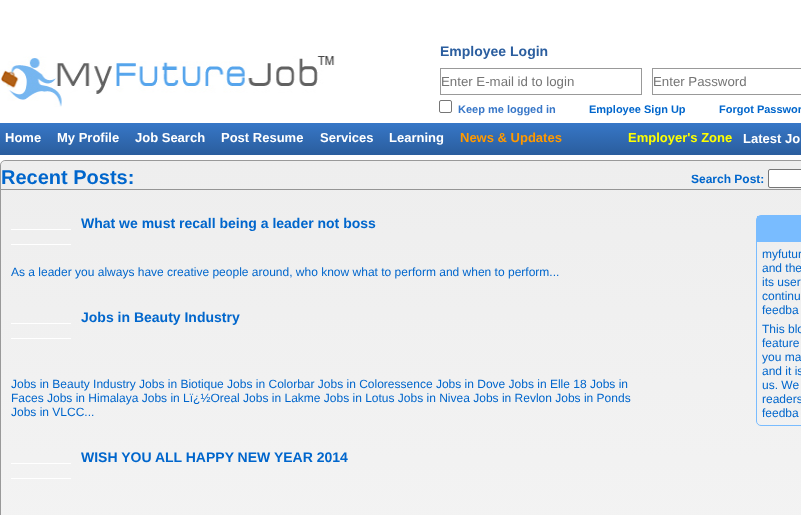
<svg xmlns="http://www.w3.org/2000/svg" width="801" height="515">
<defs>
<linearGradient id="g1" gradientUnits="userSpaceOnUse" x1="0" y1="123" x2="0" y2="155"><stop offset="0" stop-color="#3777c7"/><stop offset="1" stop-color="#2a5d9d"/></linearGradient>
<clipPath id="clip1"><rect y="160" width="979" height="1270" rx="5"/></clipPath>
<linearGradient id="g2" gradientUnits="userSpaceOnUse" x1="1" y1="161" x2="1" y2="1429"><stop offset="0" stop-color="#eee"/><stop offset="1" stop-color="#fff"/></linearGradient>
</defs>
<rect width="100%" height="100%" fill="#fff"/>
<image x="0" y="56" width="335" height="51" href="media/1.png"/>
<text x="440" y="56" style="font-family:Liberation Sans;font-size:14px;font-weight:bold;fill:#2b5e9f">Employee Login</text>
<rect x="440.5" y="68.5" width="201" height="26" fill="none" stroke="#999"/>
<text x="441" y="86" style="font-family:Liberation Sans;font-size:13.25px;fill:#757575">Enter E-mail id to login</text>
<rect x="652.5" y="68.5" width="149" height="26" fill="none" stroke="#999"/>
<text x="653" y="86" style="font-family:Liberation Sans;font-size:13.25px;fill:#757575">Enter Password</text>
<rect x="439.5" y="100.5" width="12" height="12" rx="1.5" fill="none" stroke="#767676"/>
<text x="458" y="113" style="font-family:Liberation Sans;font-size:11px;font-weight:bold;fill:#3877c8">Keep me logged in</text>
<text x="589" y="113" style="font-family:Liberation Sans;font-size:11px;font-weight:bold;fill:#06c">Employee Sign Up</text>
<text x="719" y="113" style="font-family:Liberation Sans;font-size:11px;font-weight:bold;fill:#06c">Forgot Passwor</text>
<rect y="123" width="801" height="32" fill="url(#g1)"/>
<text x="5" y="142" style="font-family:Liberation Sans;font-size:13px;font-weight:bold;fill:#fff">Home</text>
<text x="57" y="142" style="font-family:Liberation Sans;font-size:13px;font-weight:bold;fill:#fff">My Profile</text>
<text x="135" y="142" style="font-family:Liberation Sans;font-size:13px;font-weight:bold;fill:#fff">Job Search</text>
<text x="221" y="142" style="font-family:Liberation Sans;font-size:13px;font-weight:bold;fill:#fff">Post Resume</text>
<text x="320" y="142" style="font-family:Liberation Sans;font-size:13px;font-weight:bold;fill:#fff">Services</text>
<text x="389" y="142" style="font-family:Liberation Sans;font-size:13px;font-weight:bold;fill:#fff">Learning</text>
<text x="460" y="142" style="font-family:Liberation Sans;font-size:13px;font-weight:bold;fill:#f90">News &amp; Updates</text>
<text x="628" y="142" style="font-family:Liberation Sans;font-size:13px;font-weight:bold;fill:#ff0">Employer's Zone</text>
<text x="743" y="143" style="font-family:Liberation Sans;font-size:13px;font-weight:bold;fill:#fff">Latest Jo</text>
<g clip-path="url(#clip1)">
<rect y="161" width="801" height="354" fill="url(#g2)"/>
</g>
<path d="M2 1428c-1-.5-1.5-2-1.5-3v-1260c0-1 .5-2.5 1.5-3c.5-1 2-1.5 3-1.5h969c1 0 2.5 .5 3 1.5c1 .5 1.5 2 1.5 3v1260c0 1-.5 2.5-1.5 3" fill="none" stroke="#999"/>
<rect x="1" y="189" width="800" height="1" fill="#959595"/>
<text x="1" y="184" style="font-family:Liberation Sans;font-size:20px;font-weight:bold;fill:#06c">Recent Posts:</text>
<text x="691" y="183" style="font-family:Liberation Sans;font-size:12px;font-weight:bold;fill:#06c">Search Post:</text>
<rect x="768.5" y="169.5" width="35" height="18" rx="1.5" fill="#fff" stroke="#767676"/>
<text x="81" y="228" style="font-family:Liberation Sans;font-size:14px;font-weight:bold;fill:#06c">What we must recall being a leader not boss</text>
<rect x="11" y="229" width="60" height="1" fill="#fff"/>
<rect x="11" y="244" width="60" height="1" fill="#fff"/>
<text x="11" y="276" style="font-family:Liberation Sans;font-size:12px;fill:#06c">As a leader you always have creative people around, who know what to perform and when to perform...</text>
<text x="81" y="322" style="font-family:Liberation Sans;font-size:14px;font-weight:bold;fill:#06c">Jobs in Beauty Industry</text>
<rect x="11" y="323" width="60" height="1" fill="#fff"/>
<rect x="11" y="338" width="60" height="1" fill="#fff"/>
<text x="11" y="388" style="font-family:Liberation Sans;font-size:12px;fill:#06c">Jobs in Beauty Industry Jobs in Biotique Jobs in Colorbar Jobs in Coloressence Jobs in Dove Jobs in Elle 18 Jobs in</text>
<text x="11" y="402" style="font-family:Liberation Sans;font-size:12px;fill:#06c">Faces Jobs in Himalaya Jobs in Lï¿½Oreal Jobs in Lakme Jobs in Lotus Jobs in Nivea Jobs in Revlon Jobs in Ponds</text>
<text x="11" y="416" style="font-family:Liberation Sans;font-size:12px;fill:#06c">Jobs in VLCC...</text>
<text x="81" y="462" style="font-family:Liberation Sans;font-size:14px;font-weight:bold;fill:#06c">WISH YOU ALL HAPPY NEW YEAR 2014</text>
<rect x="11" y="463" width="60" height="1" fill="#fff"/>
<rect x="11" y="478" width="60" height="1" fill="#fff"/>
<rect x="756.5" y="215.5" width="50" height="210" rx="4.5" fill="none" stroke="#79bcff"/>
<rect x="757" y="216" width="44" height="26" fill="#79bcff"/>
<text x="762" y="258" style="font-family:Liberation Sans;font-size:12px;fill:#06c">myfutur</text>
<text x="762" y="272" style="font-family:Liberation Sans;font-size:12px;fill:#06c">and the</text>
<text x="762" y="286" style="font-family:Liberation Sans;font-size:12px;fill:#06c">its user</text>
<text x="762" y="300" style="font-family:Liberation Sans;font-size:12px;fill:#06c">continu</text>
<text x="762" y="314" style="font-family:Liberation Sans;font-size:12px;fill:#06c">feedba</text>
<text x="762" y="333" style="font-family:Liberation Sans;font-size:12px;fill:#06c">This blo</text>
<text x="762" y="347" style="font-family:Liberation Sans;font-size:12px;fill:#06c">feature</text>
<text x="762" y="361" style="font-family:Liberation Sans;font-size:12px;fill:#06c">you ma</text>
<text x="762" y="375" style="font-family:Liberation Sans;font-size:12px;fill:#06c">and it is</text>
<text x="762" y="389" style="font-family:Liberation Sans;font-size:12px;fill:#06c">us. We</text>
<text x="762" y="403" style="font-family:Liberation Sans;font-size:12px;fill:#06c">readers</text>
<text x="762" y="417" style="font-family:Liberation Sans;font-size:12px;fill:#06c">feedba</text>
</svg>
